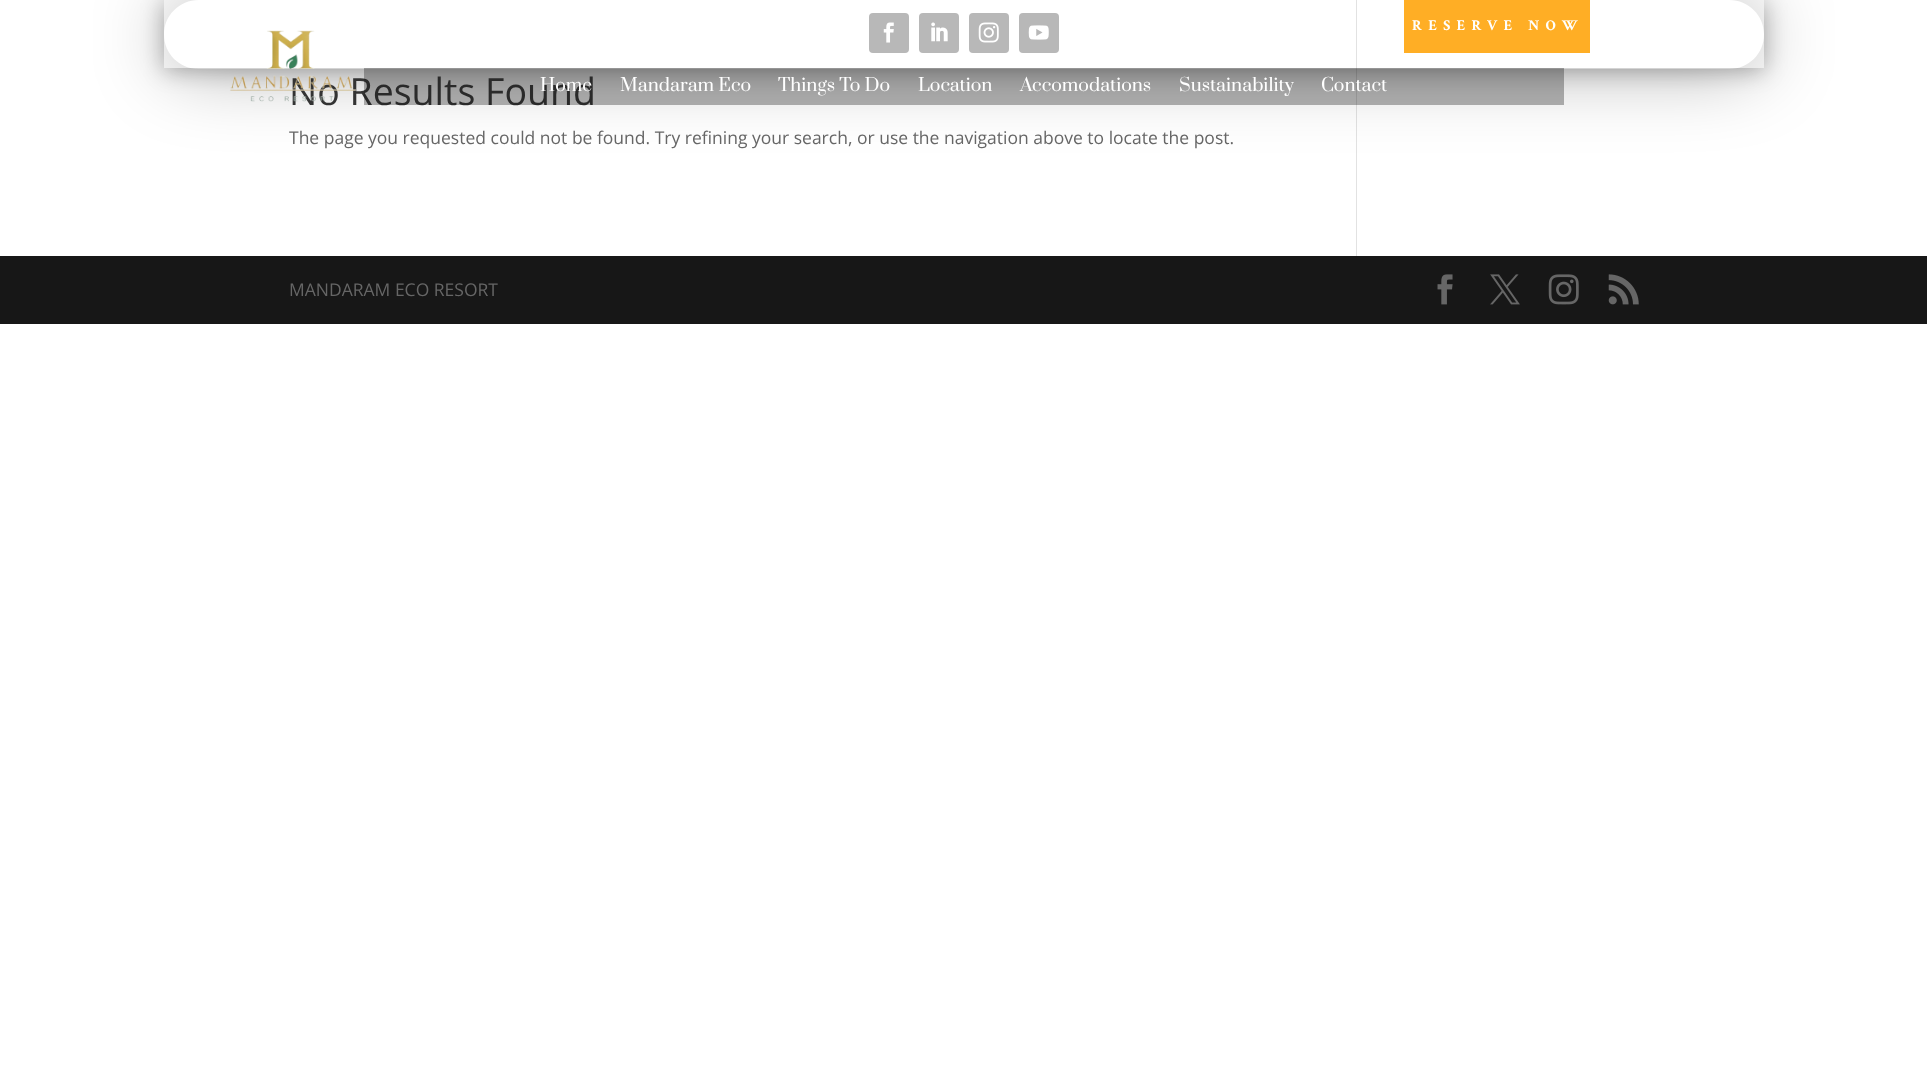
<svg xmlns="http://www.w3.org/2000/svg" width="1927" height="1065">
<defs>
<clipPath id="clip1"><path d="M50 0h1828v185h-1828zm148.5 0h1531c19 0 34.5 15.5 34.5 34.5c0 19-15.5 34.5-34.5 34.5h-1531c-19 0-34.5-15.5-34.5-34.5c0-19 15.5-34.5 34.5-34.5z" clip-rule="evenodd"/></clipPath>
<clipPath id="clip2"><path d="M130 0h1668v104h-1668zm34 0h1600v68h-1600z" clip-rule="evenodd"/></clipPath>
</defs>
<rect width="100%" height="100%" fill="#fff"/>
<rect x="1356" width="1" height="256" fill="#e2e2e2"/>
<g clip-path="url(#clip1)">
<rect x="164" y="3" width="1600" height="68" rx="34" fill="#0000004d" filter="blur(37.5px)"/>
</g>
<g clip-path="url(#clip2)">
<rect x="164" y="3" width="1600" height="67" fill="#0000004d" filter="blur(11px)"/>
</g>
<rect x="869" y="13" width="40" height="40" rx="4" fill="#b8b8b8"/>
<image x="883" y="22" width="11" height="21" href="media/1.png"/>
<rect x="919" y="13" width="40" height="40" rx="4" fill="#b8b8b8"/>
<image x="931" y="22" width="17" height="20" href="media/2.png"/>
<rect x="969" y="13" width="40" height="40" rx="4" fill="#b8b8b8"/>
<image x="978" y="22" width="21" height="21" href="media/3.png"/>
<rect x="1019" y="13" width="40" height="40" rx="4" fill="#b8b8b8"/>
<image x="1028" y="25" width="21" height="15" href="media/4.png"/>
<rect x="1404" width="186" height="53" fill="#ffae25"/>
<text x="1412" y="30" style="font-family:Crimson Text;font-size:15px;font-weight:bold;letter-spacing:6.25px;fill:#fff">RESERVE NOW</text>
<text x="289" y="105" style="font-family:Open Sans;font-size:37.5px;fill:#333">No Results Found</text>
<image x="230" y="30" width="126" height="72" href="media/5.png"/>
<rect x="364" y="68" width="1200" height="37" fill="#19191954"/>
<text x="540" y="91" style="font-family:Prata;font-size:17.5px;fill:#fff">Home</text>
<text x="620" y="91" style="font-family:Prata;font-size:17.5px;fill:#fff">Mandaram Eco</text>
<text x="778" y="91" style="font-family:Prata;font-size:17.5px;fill:#fff">Things To Do</text>
<text x="918" y="91" style="font-family:Prata;font-size:17.5px;fill:#fff">Location</text>
<text x="1020" y="91" style="font-family:Prata;font-size:17.5px;fill:#fff">Accomodations</text>
<text x="1179" y="91" style="font-family:Prata;font-size:17.5px;fill:#fff">Sustainability</text>
<text x="1321" y="91" style="font-family:Prata;font-size:17.5px;fill:#fff">Contact</text>
<text x="289" y="144" style="font-family:Open Sans;font-size:17.5px;fill:#666">The page you requested could not be found. Try refining your search, or use the navigation above to locate the post.</text>
<rect y="256" width="1927" height="68" fill="#171717"/>
<text x="289" y="296" style="font-family:Open Sans;font-size:17.5px;fill:#666">MANDARAM ECO RESORT</text>
<image x="1437" y="274" width="16" height="31" href="media/6.png"/>
<image x="1490" y="274" width="30" height="31" href="media/7.png"/>
<image x="1548" y="274" width="31" height="31" href="media/8.png"/>
<image x="1608" y="274" width="31" height="31" href="media/9.png"/>
</svg>
